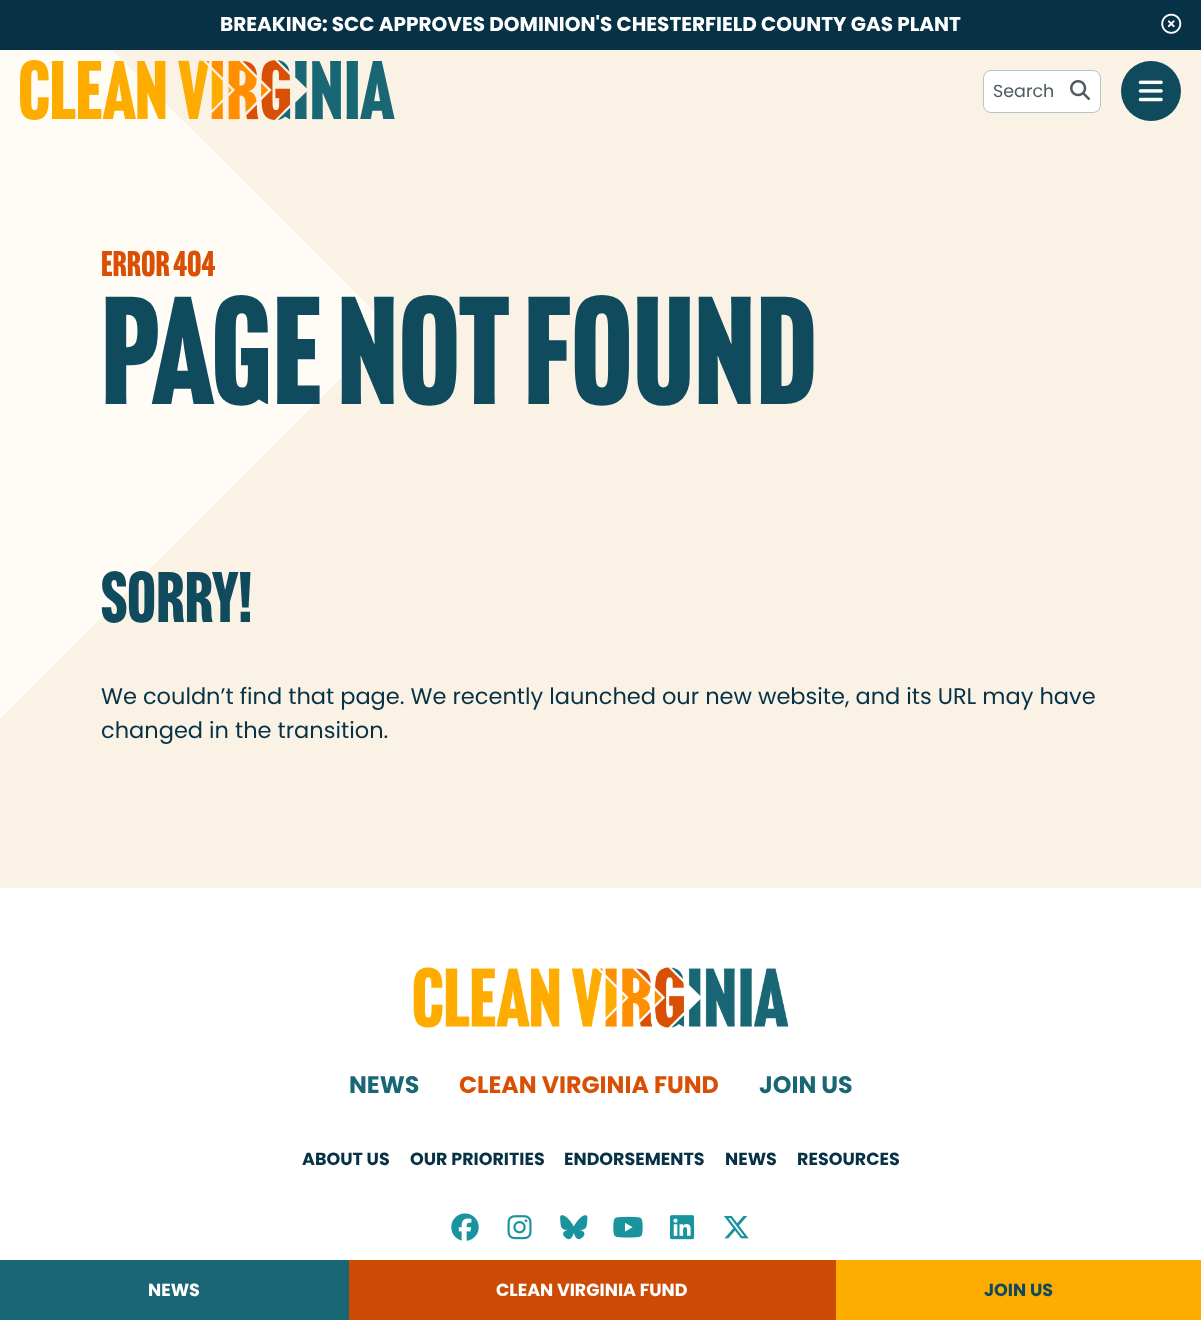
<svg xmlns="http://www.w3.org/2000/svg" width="1201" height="1320">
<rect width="100%" height="100%" fill="#f9f2e5"/>
<path d="M0-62l391 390l-391 391z" fill="#fffcf6"/>
<rect width="1201" height="50" fill="#073145"/>
<text x="220" y="31" style="font-family:Poppins;font-size:20px;font-weight:bold;fill:#fff">BREAKING: SCC APPROVES DOMINION'S CHESTERFIELD COUNTY GAS PLANT</text>
<image x="1161" y="13" width="21" height="21" href="media/1.png"/>
<image x="20" y="60" width="375" height="60" href="media/2.png"/>
<rect x="983.5" y="70.5" width="117" height="42" rx="7.5" fill="#fff" stroke="#b8c3c9"/>
<text x="993" y="97" style="font-family:Poppins;font-size:17.5px;fill:#4f5c60">Search</text>
<image x="1070" y="80" width="20" height="20" href="media/3.png"/>
<circle cx="1151" cy="91" r="30" fill="#0f4a5d"/>
<image x="1138" y="80" width="25" height="22" href="media/4.png"/>
<text x="101" y="276" style="font-family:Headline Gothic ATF;font-size:35px;fill:#d94f04">ERROR 404</text>
<text x="101" y="404" style="font-family:Headline Gothic ATF;font-size:150px;fill:#0f4a5d">PAGE NOT FOUND</text>
<text x="101" y="622" style="font-family:Headline Gothic ATF;font-size:70px;fill:#0f4a5d">SORRY!</text>
<text x="101" y="704" style="font-family:Poppins;font-size:22.5px;fill:#073145">We couldn’t find that page. We recently launched our new website, and its URL may have</text>
<text x="101" y="738" style="font-family:Poppins;font-size:22.5px;fill:#073145">changed in the transition.</text>
<rect y="888" width="1201" height="372" fill="#fff"/>
<image x="413" y="967" width="376" height="61" href="media/5.png"/>
<text x="349" y="1093" style="font-family:Poppins;font-size:23.75px;font-weight:bold;fill:#196774">NEWS</text>
<text x="459" y="1093" style="font-family:Poppins;font-size:23.75px;font-weight:bold;fill:#d94f04">CLEAN VIRGINIA FUND</text>
<text x="759" y="1093" style="font-family:Poppins;font-size:23.75px;font-weight:bold;fill:#196774">JOIN US</text>
<text x="302" y="1165" style="font-family:Poppins;font-size:17.5px;font-weight:bold;fill:#073145">ABOUT US</text>
<text x="410" y="1165" style="font-family:Poppins;font-size:17.5px;font-weight:bold;fill:#073145">OUR PRIORITIES</text>
<text x="564" y="1165" style="font-family:Poppins;font-size:17.5px;font-weight:bold;fill:#073145">ENDORSEMENTS</text>
<text x="725" y="1165" style="font-family:Poppins;font-size:17.5px;font-weight:bold;fill:#073145">NEWS</text>
<text x="797" y="1165" style="font-family:Poppins;font-size:17.5px;font-weight:bold;fill:#073145">RESOURCES</text>
<image x="451" y="1213" width="28" height="28" href="media/6.png"/>
<image x="507" y="1215" width="25" height="25" href="media/7.png"/>
<image x="560" y="1215" width="28" height="25" href="media/8.png"/>
<image x="613" y="1216" width="30" height="22" href="media/9.png"/>
<image x="670" y="1215" width="25" height="25" href="media/10.png"/>
<image x="724" y="1216" width="25" height="23" href="media/11.png"/>
<rect y="1260" width="349" height="60" fill="#196774"/>
<text x="148" y="1296" style="font-family:Poppins;font-size:17.5px;font-weight:bold;fill:#fff">NEWS</text>
<rect x="349" y="1260" width="487" height="60" fill="#cd4b04"/>
<text x="496" y="1296" style="font-family:Poppins;font-size:17.5px;font-weight:bold;fill:#fff">CLEAN VIRGINIA FUND</text>
<rect x="836" y="1260" width="365" height="60" fill="#ffac00"/>
<text x="984" y="1296" style="font-family:Poppins;font-size:17.5px;font-weight:bold;fill:#0f4a5d">JOIN US</text>
</svg>
